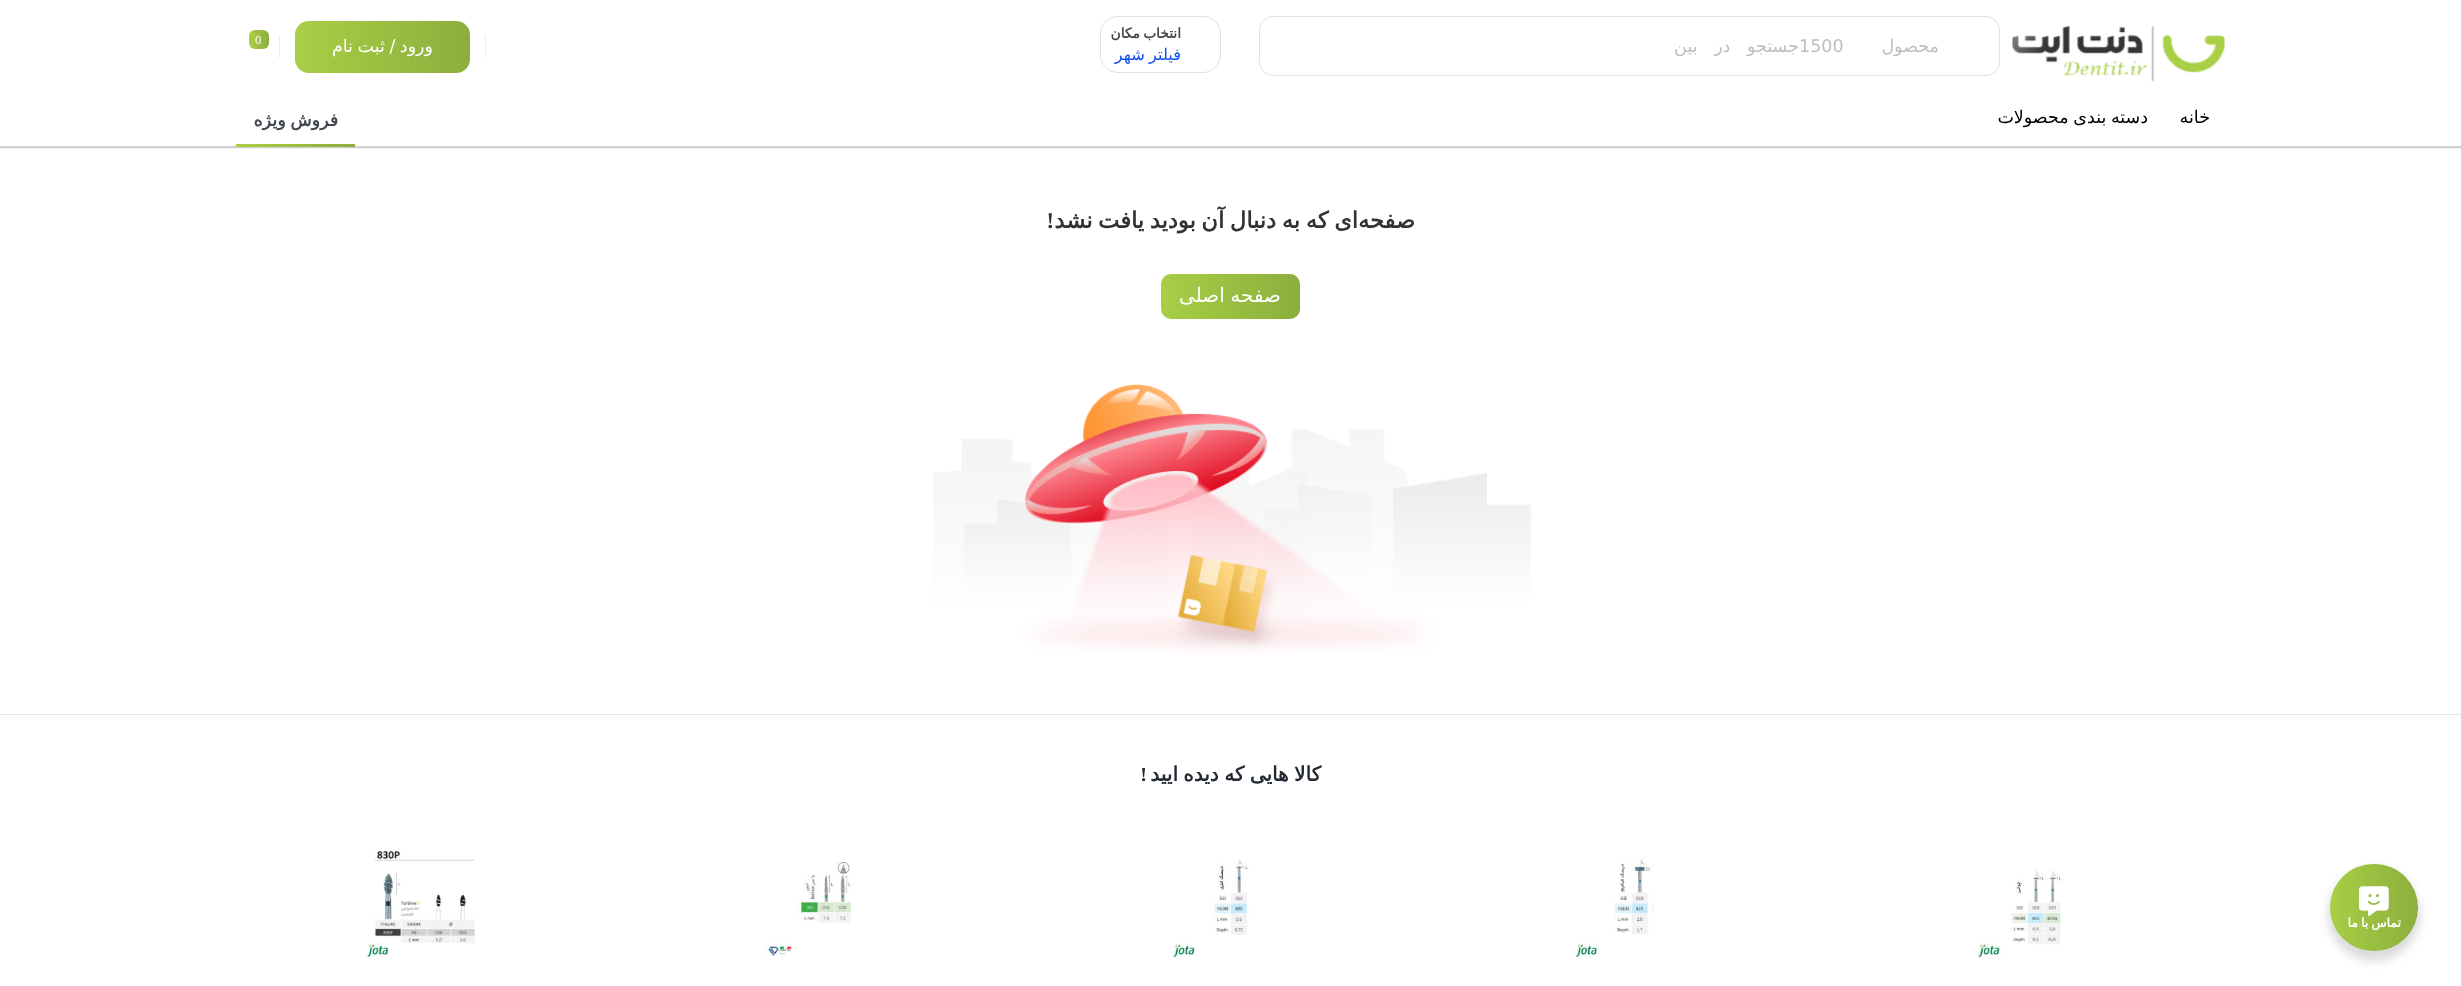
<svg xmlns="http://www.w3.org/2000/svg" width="2461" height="986">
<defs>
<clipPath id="clip1"><rect x="1269" y="36" width="670" height="20"/></clipPath>
<linearGradient id="g1" gradientUnits="userSpaceOnUse" x1="295" y1="47" x2="470" y2="47"><stop offset="0" stop-color="#a8cf45"/><stop offset="1" stop-color="#8cae3d"/></linearGradient>
<linearGradient id="g2" gradientUnits="userSpaceOnUse" x1="249" y1="39" x2="269" y2="39"><stop offset="0" stop-color="#a8cf45"/><stop offset="1" stop-color="#8cae3d"/></linearGradient>
<linearGradient id="g3" gradientUnits="userSpaceOnUse" x1="236" y1="145" x2="355" y2="145"><stop offset="0" stop-color="#a8cf45"/><stop offset="1" stop-color="#8cae3d"/></linearGradient>
<linearGradient id="g4" gradientUnits="userSpaceOnUse" x1="1161" y1="296" x2="1300" y2="296"><stop offset="0" stop-color="#a8cf45"/><stop offset="1" stop-color="#8cae3d"/></linearGradient>
<linearGradient id="g5" gradientUnits="userSpaceOnUse" x1="2330" y1="908" x2="2418" y2="908"><stop offset="0" stop-color="#a8cf45"/><stop offset="1" stop-color="#8cae3d"/></linearGradient>
</defs>
<rect width="100%" height="100%" fill="#fff"/>
<image x="2012" y="26" width="214" height="56" href="media/1.png"/>
<rect x="1259.5" y="16.5" width="740" height="59" rx="13.5" fill="none" stroke="#e2e2e2"/>
<g clip-path="url(#clip1)">
<text x="1939" y="52" style="font-family:DejaVu Sans;font-size:17.5px;direction:rtl;fill:#bebebe">محصول</text>
</g>
<text x="1799" y="52" style="font-family:DejaVu Sans;font-size:17.5px;fill:#bebebe">1500</text>
<g clip-path="url(#clip1)">
<text x="1799" y="52" word-spacing="11" style="font-family:DejaVu Sans;font-size:17.5px;direction:rtl;fill:#bebebe">جستجو در بین</text>
</g>
<rect x="1100.5" y="16.5" width="120" height="56" rx="17.5" fill="none" stroke="#e2e2e2"/>
<text x="1181" y="38" word-spacing="-1" style="font-family:DejaVu Sans;font-size:13.75px;font-weight:bold;direction:rtl;fill:#454545">انتخاب مکان</text>
<text x="1181" y="60" word-spacing="-1" style="font-family:DejaVu Sans;font-size:16.25px;direction:rtl;fill:#1051ef">فیلتر شهر</text>
<rect x="485" y="35" width="1" height="23" fill="#ededed"/>
<rect x="295" y="21" width="175" height="52" rx="14" fill="url(#g1)"/>
<text x="433" y="52" word-spacing="-1" style="font-family:DejaVu Sans;font-size:17.5px;direction:rtl;fill:#fff">ورود / ثبت نام</text>
<rect x="279" y="35" width="1" height="23" fill="#ededed"/>
<rect x="249" y="30" width="20" height="19" rx="6" fill="url(#g2)"/>
<text x="255" y="44" style="font-family:Liberation Serif;font-size:12.5px;fill:#fff">0</text>
<rect y="148" width="2461" height="1" fill="#f2f2f2"/>
<rect y="146" width="2461" height="2" fill="#d0d0d0"/>
<text x="2210" y="123" style="font-family:DejaVu Sans;font-size:17.5px;direction:rtl;fill:#000">خانه</text>
<text x="2148" y="123" word-spacing="-1" style="font-family:DejaVu Sans;font-size:17.5px;direction:rtl;fill:#000">دسته بندی محصولات</text>
<text x="338" y="126" word-spacing="-1" style="font-family:DejaVu Sans;font-size:17.5px;font-weight:bold;direction:rtl;fill:#424750">فروش ویژه</text>
<rect x="236" y="144" width="119" height="3" fill="url(#g3)"/>
<text x="1415" y="228" style="font-family:DejaVu Sans;font-size:22.5px;font-weight:bold;direction:rtl;fill:#333">صفحه</text>
<text x="1358" y="228" word-spacing="-1.5" style="font-family:DejaVu Sans;font-size:22.5px;font-weight:bold;direction:rtl;fill:#333">ای که به دنبال آن بودید یافت نشد</text>
<text x="1054" y="228" style="font-family:Liberation Serif;font-size:22.5px;font-weight:bold;direction:rtl;fill:#333">!</text>
<rect x="1161" y="274" width="139" height="45" rx="10" fill="url(#g4)"/>
<text x="1281" y="302" word-spacing="-1" style="font-family:DejaVu Sans;font-size:20px;direction:rtl;fill:#fff">صفحه اصلی</text>
<image x="933" y="384" width="598" height="269" href="media/2.png"/>
<rect y="714" width="2461" height="1" fill="#e2e6e9"/>
<text x="1321" y="781" word-spacing="-1" style="font-family:DejaVu Sans;font-size:20px;font-weight:bold;direction:rtl;fill:#232933">کالا هایی که دیده ایید</text>
<text x="1147" y="781" style="font-family:Liberation Serif;font-size:20px;font-weight:bold;direction:rtl;fill:#232933">!</text>
<image x="1978" y="870" width="85" height="89" href="media/3.png"/>
<image x="1574" y="857" width="81" height="102" href="media/4.png"/>
<image x="1173" y="859" width="77" height="100" href="media/5.png"/>
<image x="765" y="862" width="87" height="97" href="media/6.png"/>
<image x="363" y="850" width="113" height="109" href="media/7.png"/>
<rect x="2328" y="869" width="92" height="92" rx="46" fill="#00000024" filter="blur(5px)"/>
<rect x="2330" y="864" width="88" height="87" rx="43.5" fill="url(#g5)"/>
<image x="2359" y="886" width="30" height="30" href="media/8.png"/>
<text x="2401" y="927" word-spacing="-1" style="font-family:DejaVu Sans;font-size:12.5px;font-weight:bold;direction:rtl;fill:#fff">تماس با ما</text>
</svg>
